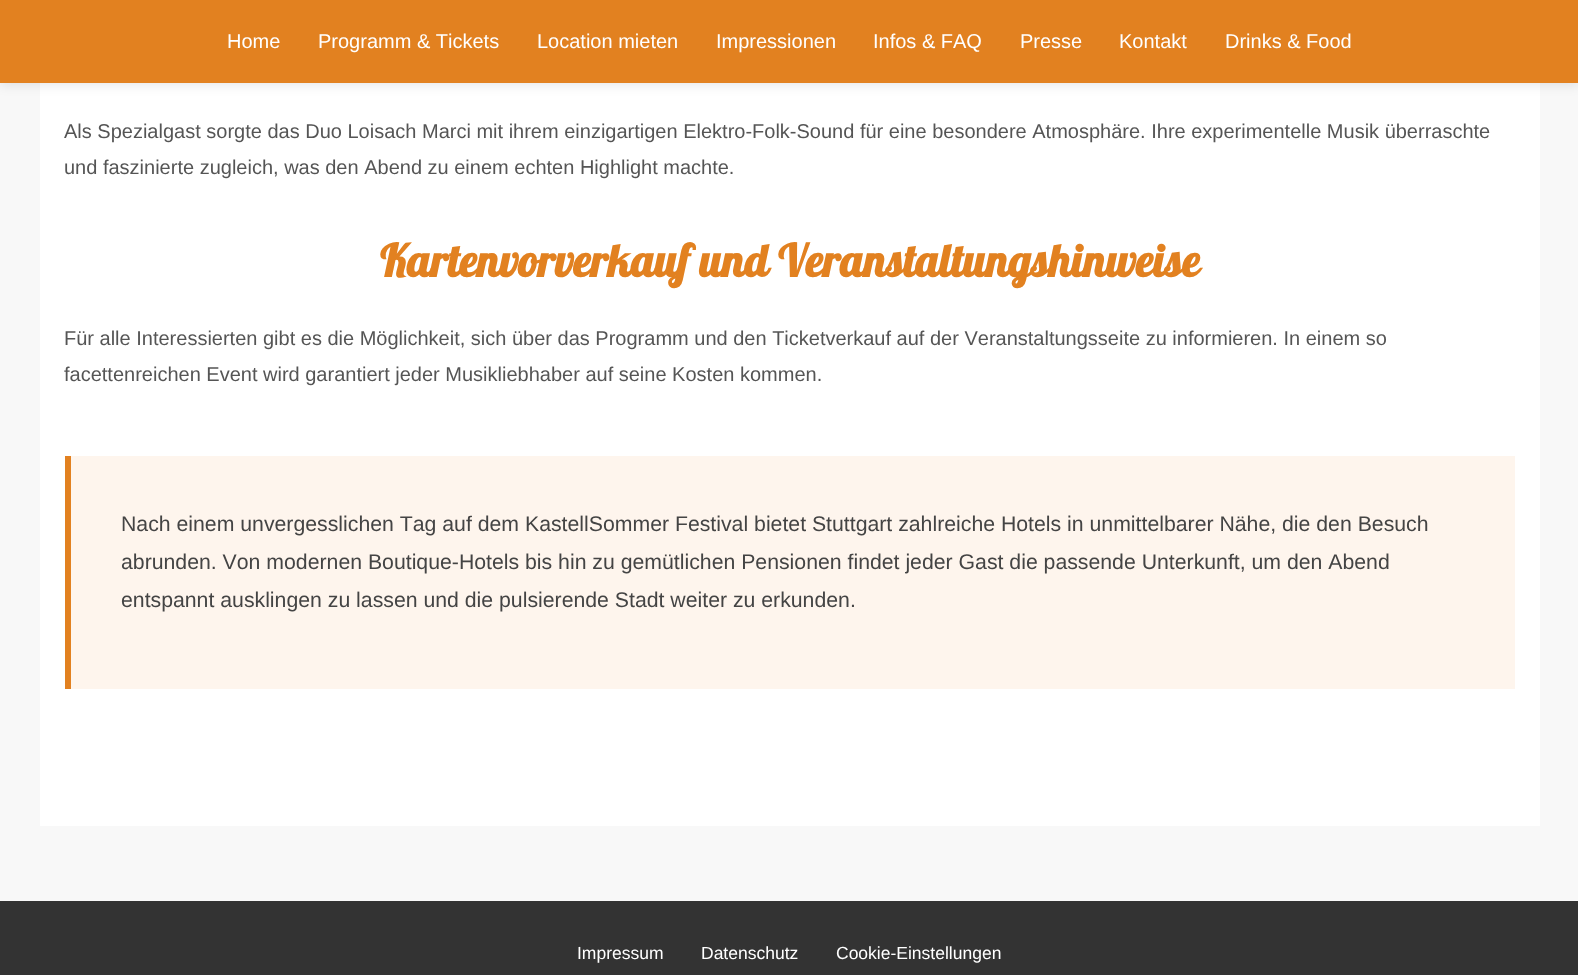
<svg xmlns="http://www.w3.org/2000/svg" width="1578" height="975">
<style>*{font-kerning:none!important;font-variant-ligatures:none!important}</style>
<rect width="100%" height="100%" fill="#f8f8f8"/>
<rect x="40" y="83" width="1500" height="743" fill="#fff"/>
<rect y="3" width="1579" height="82" fill="#0000001a" filter="blur(6px)"/>
<rect width="1578" height="83" fill="#e28120"/>
<text x="227" y="48" style="font-family:Liberation Sans;font-size:20px;fill:#fff">Home</text>
<text x="318" y="48" style="font-family:Liberation Sans;font-size:20px;fill:#fff">Programm &amp; Tickets</text>
<text x="537" y="48" style="font-family:Liberation Sans;font-size:20px;fill:#fff">Location mieten</text>
<text x="716" y="48" style="font-family:Liberation Sans;font-size:20px;fill:#fff">Impressionen</text>
<text x="873" y="48" style="font-family:Liberation Sans;font-size:20px;fill:#fff">Infos &amp; FAQ</text>
<text x="1020" y="48" style="font-family:Liberation Sans;font-size:20px;fill:#fff">Presse</text>
<text x="1119" y="48" style="font-family:Liberation Sans;font-size:20px;fill:#fff">Kontakt</text>
<text x="1225" y="48" style="font-family:Liberation Sans;font-size:20px;fill:#fff">Drinks &amp; Food</text>
<text x="64" y="138" style="font-family:Liberation Sans;font-size:20px;fill:#555">Als Spezialgast sorgte das Duo Loisach Marci mit ihrem einzigartigen Elektro-Folk-Sound für eine besondere Atmosphäre. Ihre experimentelle Musik überraschte</text>
<text x="64" y="174" style="font-family:Liberation Sans;font-size:20px;fill:#555">und faszinierte zugleich, was den Abend zu einem echten Highlight machte.</text>
<text x="380" y="277" style="font-family:Lobster;font-size:45px;font-weight:bold;fill:#e28120">Kartenvorverkauf und Veranstaltungshinweise</text>
<text x="64" y="345" style="font-family:Liberation Sans;font-size:20px;fill:#555">Für alle Interessierten gibt es die Möglichkeit, sich über das Programm und den Ticketverkauf auf der Veranstaltungsseite zu informieren. In einem so</text>
<text x="64" y="381" style="font-family:Liberation Sans;font-size:20px;fill:#555">facettenreichen Event wird garantiert jeder Musikliebhaber auf seine Kosten kommen.</text>
<rect x="71" y="456" width="1444" height="233" fill="#fef5ed"/>
<rect x="65" y="456" width="6" height="233" fill="#e28120"/>
<text x="121" y="531" style="font-family:Liberation Sans;font-size:21.25px;fill:#444">Nach einem unvergesslichen Tag auf dem KastellSommer Festival bietet Stuttgart zahlreiche Hotels in unmittelbarer Nähe, die den Besuch</text>
<text x="121" y="569" style="font-family:Liberation Sans;font-size:21.25px;fill:#444">abrunden. Von modernen Boutique-Hotels bis hin zu gemütlichen Pensionen findet jeder Gast die passende Unterkunft, um den Abend</text>
<text x="121" y="607" style="font-family:Liberation Sans;font-size:21.25px;fill:#444">entspannt ausklingen zu lassen und die pulsierende Stadt weiter zu erkunden.</text>
<rect y="901" width="1578" height="74" fill="#333"/>
<text x="577" y="959" style="font-family:Liberation Sans;font-size:17.5px;fill:#fff">Impressum</text>
<text x="701" y="959" style="font-family:Liberation Sans;font-size:17.5px;fill:#fff">Datenschutz</text>
<text x="836" y="959" style="font-family:Liberation Sans;font-size:17.5px;fill:#fff">Cookie-Einstellungen</text>
</svg>
